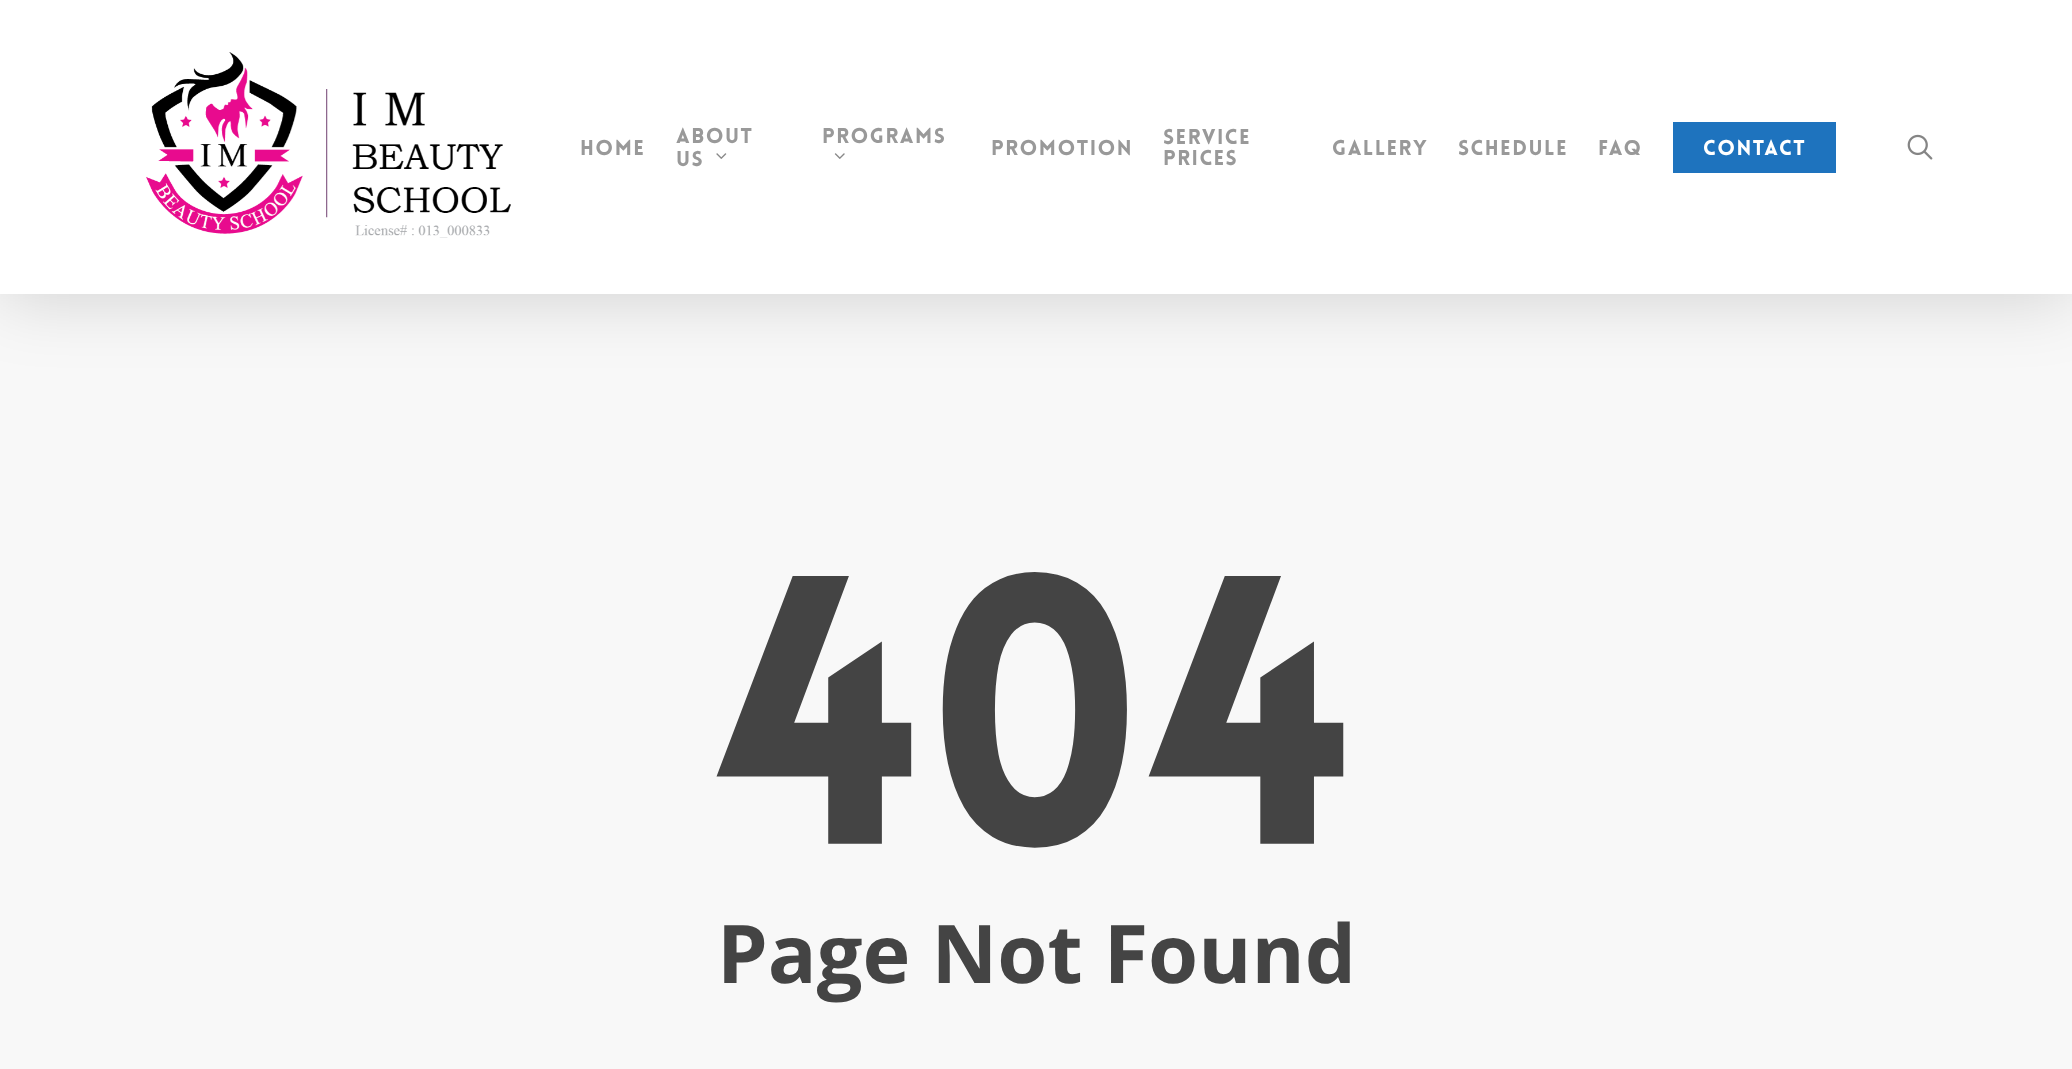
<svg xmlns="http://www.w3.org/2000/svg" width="2072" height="1069">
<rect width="100%" height="100%" fill="#f8f8f8"/>
<rect y="5" width="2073" height="294" fill="#00000026" filter="blur(34px)"/>
<rect width="2072" height="294" fill="#fff"/>
<image x="146" y="52" width="365" height="186" href="media/1.png"/>
<text x="580" y="155" style="font-family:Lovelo;font-size:21px;font-weight:900;letter-spacing:1.5px;fill:#999">Home</text>
<text x="676" y="143" style="font-family:Lovelo;font-size:21px;font-weight:900;letter-spacing:1.5px;fill:#999">About</text>
<text x="676" y="166" style="font-family:Lovelo;font-size:21px;font-weight:900;letter-spacing:1.5px;fill:#999">Us</text>
<image x="716" y="153" width="11" height="6" href="media/2.png"/>
<text x="822" y="143" style="font-family:Lovelo;font-size:21px;font-weight:900;letter-spacing:1.5px;fill:#999">Programs</text>
<image x="834" y="153" width="11" height="6" href="media/3.png"/>
<text x="991" y="155" style="font-family:Lovelo;font-size:21px;font-weight:900;letter-spacing:1.5px;fill:#999">Promotion</text>
<text x="1163" y="144" style="font-family:Lovelo;font-size:21px;font-weight:900;letter-spacing:1.5px;fill:#999">Service</text>
<text x="1163" y="165" style="font-family:Lovelo;font-size:21px;font-weight:900;letter-spacing:1.5px;fill:#999">Prices</text>
<text x="1332" y="155" style="font-family:Lovelo;font-size:21px;font-weight:900;letter-spacing:1.5px;fill:#999">Gallery</text>
<text x="1458" y="155" style="font-family:Lovelo;font-size:21px;font-weight:900;letter-spacing:1.5px;fill:#999">Schedule</text>
<text x="1598" y="155" style="font-family:Lovelo;font-size:21px;font-weight:900;letter-spacing:1.5px;fill:#999">FAQ</text>
<rect x="1673" y="122" width="163" height="51" fill="#1e73be"/>
<text x="1703" y="155" style="font-family:Lovelo;font-size:21px;font-weight:900;letter-spacing:1.5px;fill:#fff">Contact</text>
<image x="1907" y="134" width="26" height="26" href="media/4.png"/>
<text x="718" y="844" style="font-family:Lovelo;font-size:375px;font-weight:900;letter-spacing:3px;fill:#444">404</text>
<text x="717" y="983" style="font-family:Open Sans;font-size:81px;font-weight:bold;fill:#444">Page Not Found</text>
</svg>
